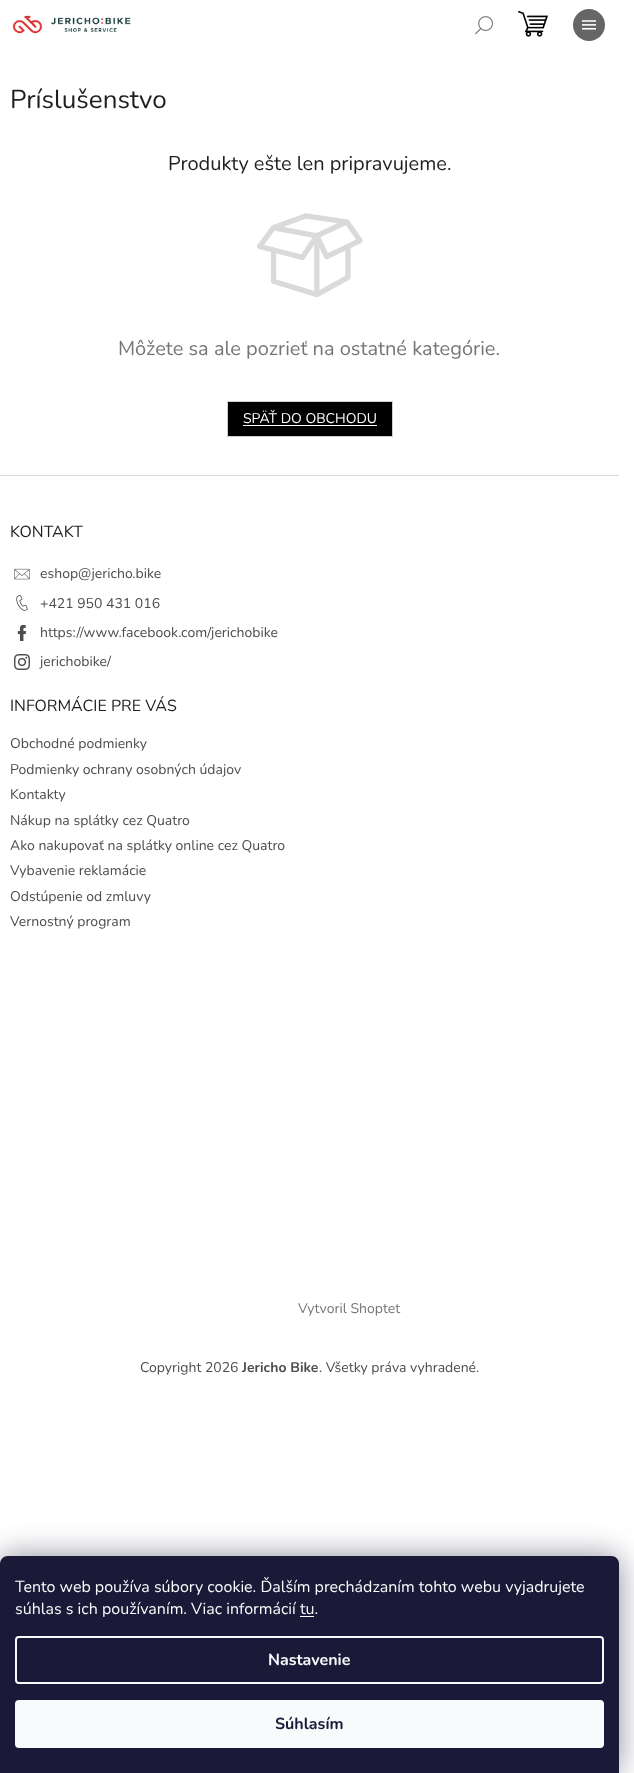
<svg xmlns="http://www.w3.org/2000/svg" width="634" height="1773">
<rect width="100%" height="100%" fill="#fff"/>
<image x="475" y="16" width="18" height="19" href="media/1.png"/>
<circle cx="589" cy="25" r="16" fill="#666"/>
<image x="582" y="20" width="14" height="10" href="media/2.png"/>
<image x="12" y="15" width="119" height="19" href="media/3.png"/>
<image x="518" y="11" width="30" height="26" href="media/4.png"/>
<text x="10" y="108" style="font-family:Nunito;font-size:26px;fill:#1f1f1f">Príslušenstvo</text>
<text x="168" y="170" style="font-family:Nunito;font-size:20px;fill:#1f1f1f">Produkty ešte len pripravujeme.</text>
<image x="257" y="213" width="106" height="85" href="media/5.png"/>
<text x="118" y="355" style="font-family:Nunito;font-size:20px;fill:#767676">Môžete sa ale pozrieť na ostatné kategórie.</text>
<rect x="227.5" y="401.5" width="165" height="35" fill="#000" stroke="#cfcfcf"/>
<text x="243" y="423" style="font-family:Nunito;font-size:14px;fill:#fff">SPÄŤ DO OBCHODU</text>
<rect x="243" y="425" width="134" height="1" fill="#fff"/>
<rect y="475" width="619" height="1" fill="#dadada"/>
<text x="10" y="537" style="font-family:Nunito;font-size:16px;fill:#1f1f1f">KONTAKT</text>
<image x="14" y="568" width="16" height="12" href="media/6.png"/>
<text x="40" y="578" style="font-family:Nunito;font-size:14px;fill:#4d4d4d">eshop@jericho.bike</text>
<image x="16" y="595" width="12" height="16" href="media/7.png"/>
<text x="40" y="608" style="font-family:Nunito;font-size:14px;fill:#4d4d4d">+421 950 431 016</text>
<image x="17" y="625" width="10" height="16" href="media/8.png"/>
<text x="40" y="637" style="font-family:Nunito;font-size:14px;fill:#4d4d4d">https://www.facebook.com/jerichobike</text>
<image x="14" y="654" width="16" height="16" href="media/9.png"/>
<text x="40" y="666" style="font-family:Nunito;font-size:14px;fill:#4d4d4d">jerichobike/</text>
<text x="10" y="711" style="font-family:Nunito;font-size:16px;fill:#1f1f1f">INFORMÁCIE PRE VÁS</text>
<text x="10" y="748" style="font-family:Nunito;font-size:14px;fill:#4d4d4d">Obchodné podmienky</text>
<text x="10" y="774" style="font-family:Nunito;font-size:14px;fill:#4d4d4d">Podmienky ochrany osobných údajov</text>
<text x="10" y="799" style="font-family:Nunito;font-size:14px;fill:#4d4d4d">Kontakty</text>
<text x="10" y="825" style="font-family:Nunito;font-size:14px;fill:#4d4d4d">Nákup na splátky cez Quatro</text>
<text x="10" y="850" style="font-family:Nunito;font-size:14px;fill:#4d4d4d">Ako nakupovať na splátky online cez Quatro</text>
<text x="10" y="875" style="font-family:Nunito;font-size:14px;fill:#4d4d4d">Vybavenie reklamácie</text>
<text x="10" y="901" style="font-family:Nunito;font-size:14px;fill:#4d4d4d">Odstúpenie od zmluvy</text>
<text x="10" y="926" style="font-family:Nunito;font-size:14px;fill:#4d4d4d">Vernostný program</text>
<text x="298" y="1313" style="font-family:Nunito;font-size:14px;fill:#767676">Vytvoril Shoptet</text>
<text x="140" y="1372" style="font-family:Nunito;font-size:14px;fill:#4d4d4d">Copyright 2026</text>
<text x="242" y="1372" style="font-family:Nunito;font-size:14px;font-weight:bold;fill:#4d4d4d">Jericho Bike</text>
<text x="319" y="1372" style="font-family:Nunito;font-size:14px;fill:#4d4d4d">. Všetky práva vyhradené.</text>
<rect y="1556" width="619" height="217" rx="8" fill="#1b193980" filter="blur(15px)"/>
<path d="M8 1556h603c4.5 0 8 3.5 8 8v209h-619v-209c0-4.5 3.5-8 8-8z" fill="#1a1937"/>
<text x="15" y="1592" style="font-family:Nunito;font-size:16px;fill:#f8fafb">Tento web používa súbory cookie. Ďalším prechádzaním tohto webu vyjadrujete</text>
<text x="15" y="1614" style="font-family:Nunito;font-size:16px;fill:#f8fafb">súhlas s ich používaním. Viac informácií tu.</text>
<rect x="300" y="1616" width="14" height="1" fill="#f8fafb"/>
<rect x="16" y="1637" width="587" height="46" rx="3" fill="none" stroke="#f8fafb" stroke-width="2"/>
<text x="268" y="1665" style="font-family:Nunito;font-size:16px;font-weight:bold;fill:#f8fafb">Nastavenie</text>
<rect x="15" y="1700" width="589" height="48" rx="4" fill="#f8fafb"/>
<text x="275" y="1729" style="font-family:Nunito;font-size:16px;font-weight:bold;fill:#1a1937">Súhlasím</text>
</svg>
